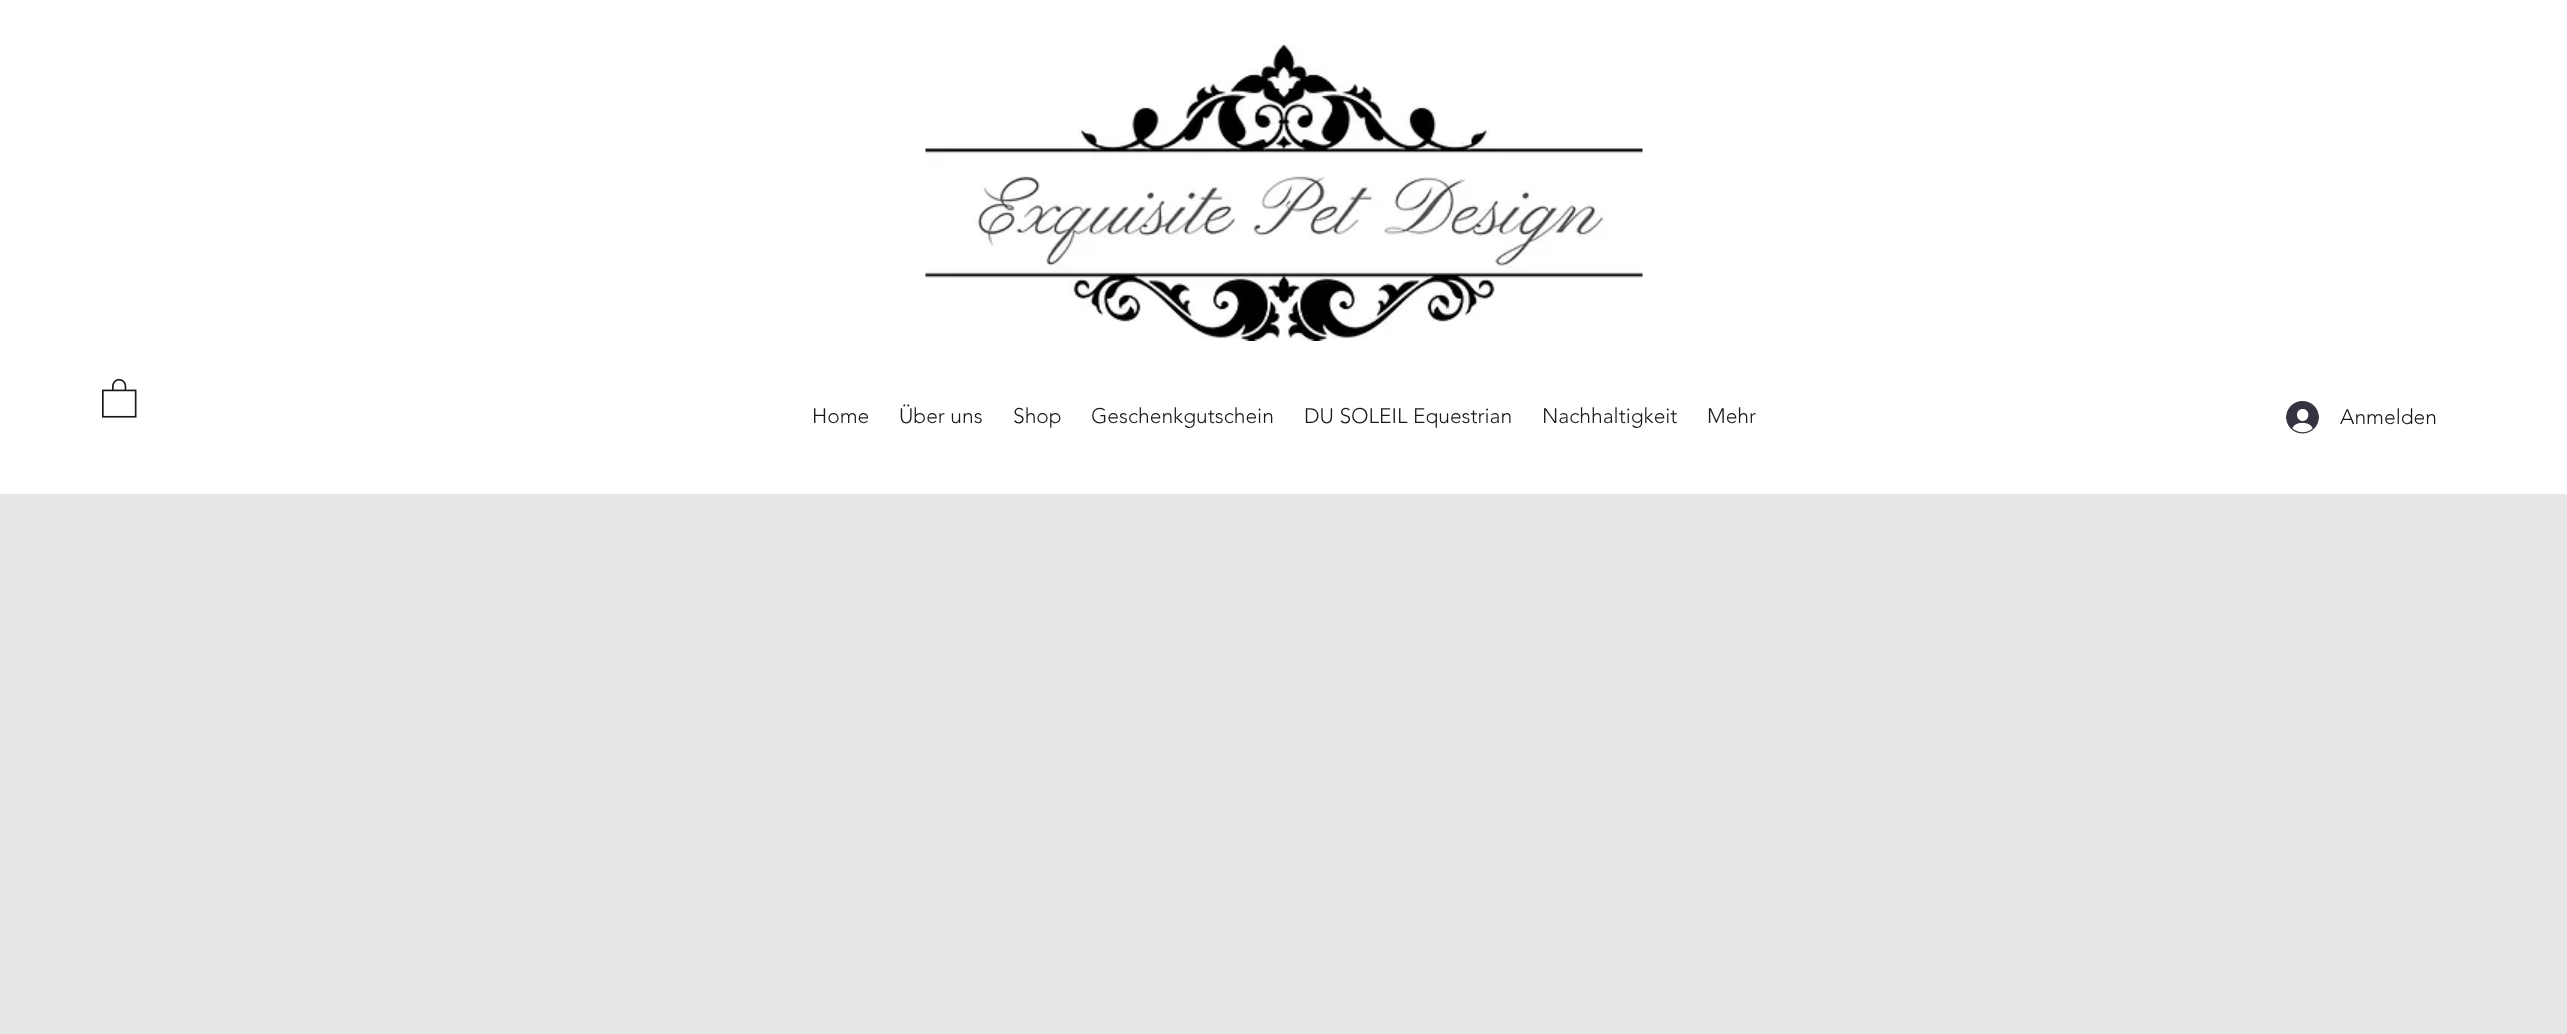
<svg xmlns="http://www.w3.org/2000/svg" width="2567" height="1034">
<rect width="100%" height="100%" fill="#fff"/>
<image x="925" y="45" width="718" height="296" href="media/1.png"/>
<image x="102" y="378" width="35" height="40" href="media/2.png"/>
<text x="812" y="423" style="font-family:'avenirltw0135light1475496';font-size:21px;font-weight:300;fill:#181818">Home</text>
<text x="899" y="423" style="font-family:'avenirltw0135light1475496';font-size:21px;font-weight:300;fill:#181818">Über uns</text>
<text x="1013" y="423" style="font-family:'avenirltw0135light1475496';font-size:21px;font-weight:300;fill:#181818">Shop</text>
<text x="1091" y="423" style="font-family:'avenirltw0135light1475496';font-size:21px;font-weight:300;fill:#181818">Geschenkgutschein</text>
<text x="1304" y="423" style="font-family:'avenirltw0135light1475496';font-size:21px;font-weight:300;fill:#181818">DU SOLEIL Equestrian</text>
<text x="1542" y="423" style="font-family:'avenirltw0135light1475496';font-size:21px;font-weight:300;fill:#181818">Nachhaltigkeit</text>
<text x="1707" y="423" style="font-family:'avenirltw0135light1475496';font-size:21px;font-weight:300;fill:#181818">Mehr</text>
<image x="2286" y="401" width="33" height="33" href="media/3.png"/>
<text x="2340" y="424" style="font-family:'avenirltw0135light1475496';font-size:21px;font-weight:300;fill:#181818">Anmelden</text>
<rect y="494" width="2567" height="540" fill="#e7e7e7"/>
</svg>
